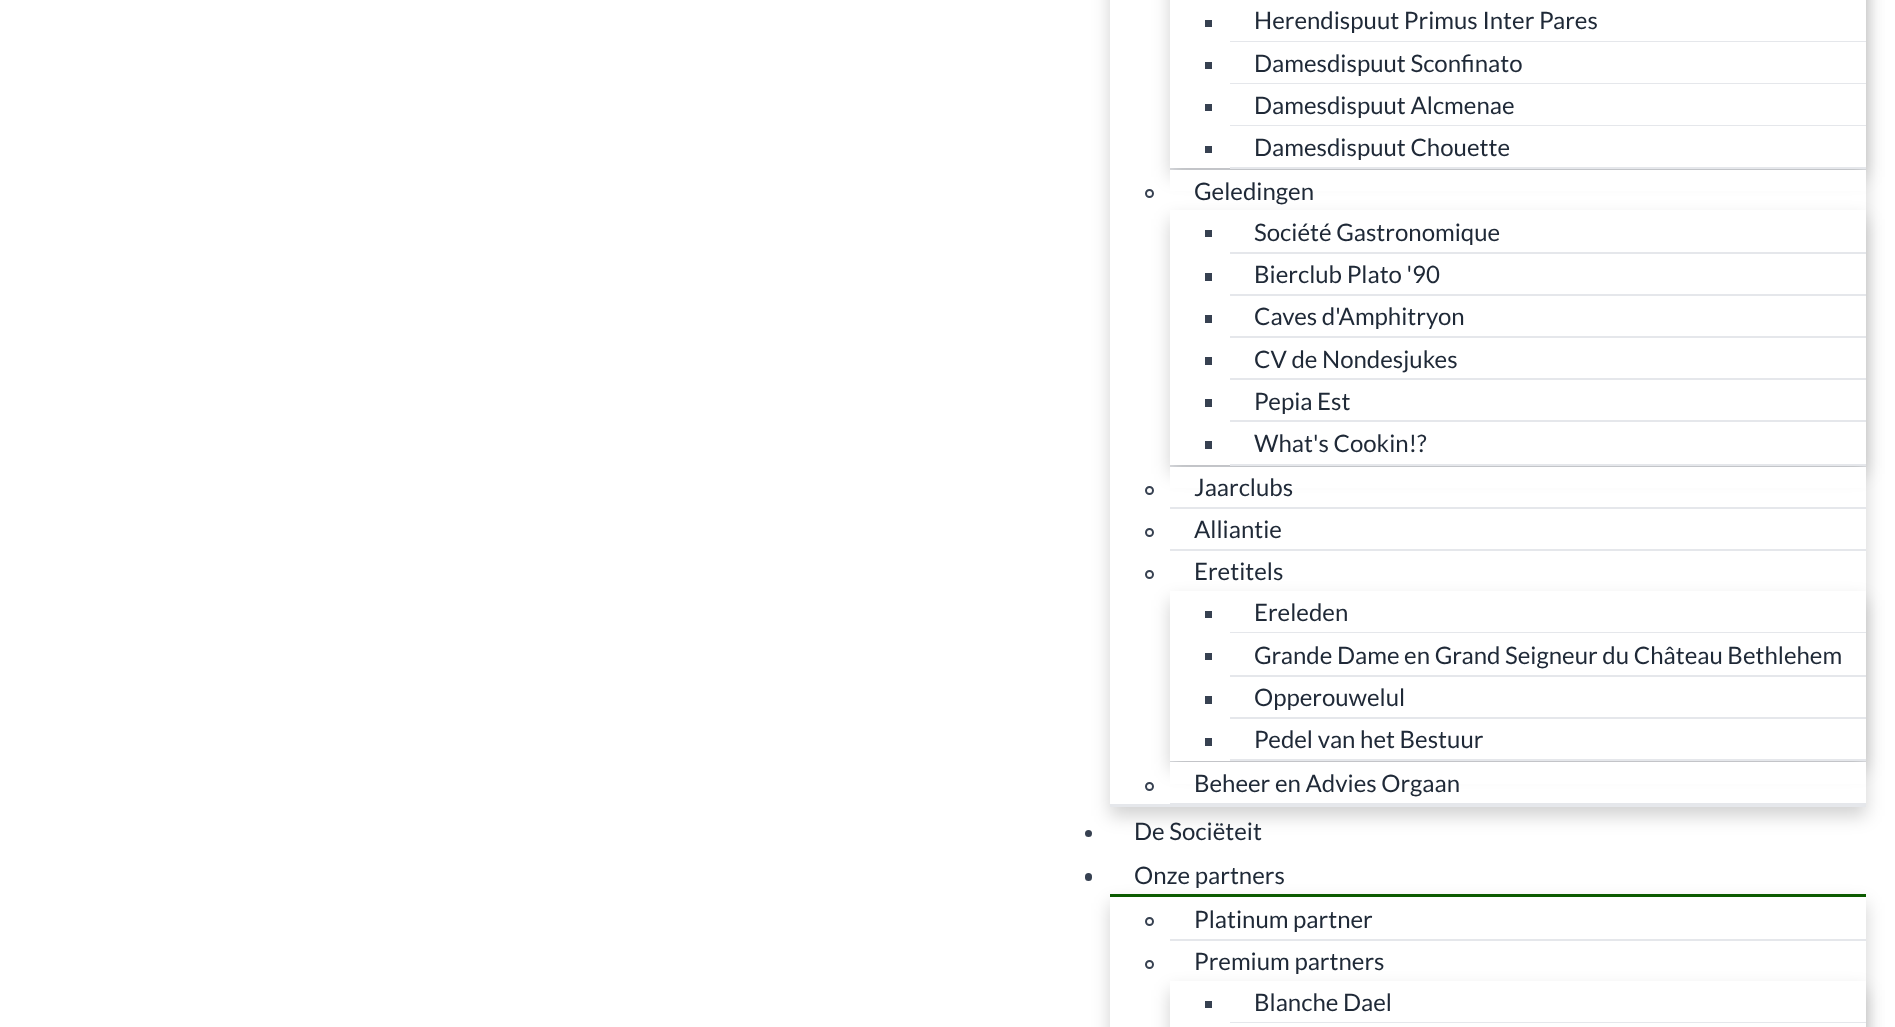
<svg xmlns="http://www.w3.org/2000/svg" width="1895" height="1027">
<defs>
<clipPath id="clip1"><path d="M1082 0h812v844h-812zm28-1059h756v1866h-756z" clip-rule="evenodd"/></clipPath>
<clipPath id="clip2"><path d="M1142 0h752v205h-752zm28-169h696v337h-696z" clip-rule="evenodd"/></clipPath>
<clipPath id="clip3"><path d="M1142 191h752v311h-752zm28 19h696v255h-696z" clip-rule="evenodd"/></clipPath>
<clipPath id="clip4"><path d="M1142 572h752v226h-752zm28 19h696v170h-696z" clip-rule="evenodd"/></clipPath>
<clipPath id="clip5"><path d="M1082 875h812v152h-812zm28 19h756v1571h-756z" clip-rule="evenodd"/></clipPath>
<clipPath id="clip6"><path d="M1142 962h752v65h-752zm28 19h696v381h-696z" clip-rule="evenodd"/></clipPath>
</defs>
<rect width="100%" height="100%" fill="#fff"/>
<g clip-path="url(#clip1)">
<rect x="1110" y="-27" width="756" height="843" fill="#0000002e" filter="blur(9px)"/>
</g>
<rect x="1110" y="804" width="756" height="3" fill="#e5e7eb"/>
<rect x="1170" y="168" width="696" height="2" fill="#e5e7eb"/>
<g clip-path="url(#clip2)">
<rect x="1170" y="-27" width="696" height="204" fill="#0000002e" filter="blur(9px)"/>
</g>
<rect x="1230" y="41" width="636" height="1" fill="#e5e7eb"/>
<rect x="1205" y="20" width="7" height="7" fill="#374151"/>
<text x="1254" y="29" style="font-family:Lato;font-size:24px;fill:#1f2937">Herendispuut Primus Inter Pares</text>
<rect x="1230" y="83" width="636" height="1" fill="#e5e7eb"/>
<rect x="1205" y="62" width="7" height="7" fill="#374151"/>
<text x="1254" y="72" style="font-family:Lato;font-size:24px;fill:#1f2937">Damesdispuut Sconfinato</text>
<rect x="1230" y="125" width="636" height="1" fill="#e5e7eb"/>
<rect x="1205" y="104" width="7" height="7" fill="#374151"/>
<text x="1254" y="114" style="font-family:Lato;font-size:24px;fill:#1f2937">Damesdispuut Alcmenae</text>
<rect x="1230" y="167" width="636" height="2" fill="#e5e7eb"/>
<rect x="1205" y="146" width="7" height="7" fill="#374151"/>
<text x="1254" y="156" style="font-family:Lato;font-size:24px;fill:#1f2937">Damesdispuut Chouette</text>
<rect x="1170" y="170" width="696" height="21" fill="#fff"/>
<rect x="1170" y="465" width="696" height="2" fill="#e5e7eb"/>
<g clip-path="url(#clip3)">
<rect x="1170" y="219" width="696" height="255" fill="#0000002e" filter="blur(9px)"/>
</g>
<circle cx="1149.5" cy="193.5" r="3.5" fill="none" stroke="#374151" stroke-width="2"/>
<text x="1194" y="200" style="font-family:Lato;font-size:24px;fill:#1f2937">Geledingen</text>
<rect x="1230" y="252" width="636" height="2" fill="#e5e7eb"/>
<rect x="1205" y="230" width="7" height="7" fill="#374151"/>
<text x="1254" y="241" style="font-family:Lato;font-size:24px;fill:#1f2937">Société Gastronomique</text>
<rect x="1230" y="294" width="636" height="2" fill="#e5e7eb"/>
<rect x="1205" y="273" width="7" height="8" fill="#374151"/>
<text x="1254" y="283" style="font-family:Lato;font-size:24px;fill:#1f2937">Bierclub Plato '90</text>
<rect x="1230" y="336" width="636" height="2" fill="#e5e7eb"/>
<rect x="1205" y="315" width="7" height="8" fill="#374151"/>
<text x="1254" y="325" style="font-family:Lato;font-size:24px;fill:#1f2937">Caves d'Amphitryon</text>
<rect x="1230" y="378" width="636" height="2" fill="#e5e7eb"/>
<rect x="1205" y="357" width="7" height="8" fill="#374151"/>
<text x="1254" y="368" style="font-family:Lato;font-size:24px;fill:#1f2937">CV de Nondesjukes</text>
<rect x="1230" y="420" width="636" height="2" fill="#e5e7eb"/>
<rect x="1205" y="399" width="7" height="8" fill="#374151"/>
<text x="1254" y="410" style="font-family:Lato;font-size:24px;fill:#1f2937">Pepia Est</text>
<rect x="1230" y="464" width="636" height="2" fill="#e5e7eb"/>
<rect x="1205" y="441" width="7" height="8" fill="#374151"/>
<text x="1254" y="452" style="font-family:Lato;font-size:24px;fill:#1f2937">What's Cookin!?</text>
<rect x="1170" y="467" width="696" height="21" fill="#fff"/>
<rect x="1170" y="507" width="696" height="2" fill="#e5e7eb"/>
<circle cx="1149.5" cy="490.5" r="3.5" fill="none" stroke="#374151" stroke-width="2"/>
<text x="1194" y="496" style="font-family:Lato;font-size:24px;fill:#1f2937">Jaarclubs</text>
<rect x="1170" y="549" width="696" height="2" fill="#e5e7eb"/>
<circle cx="1149.5" cy="532.5" r="3.5" fill="none" stroke="#374151" stroke-width="2"/>
<text x="1194" y="538" style="font-family:Lato;font-size:24px;fill:#1f2937">Alliantie</text>
<rect x="1170" y="761" width="696" height="1" fill="#e5e7eb"/>
<g clip-path="url(#clip4)">
<rect x="1170" y="600" width="696" height="170" fill="#0000002e" filter="blur(9px)"/>
</g>
<circle cx="1149.5" cy="574.5" r="3.5" fill="none" stroke="#374151" stroke-width="2"/>
<text x="1194" y="580" style="font-family:Lato;font-size:24px;fill:#1f2937">Eretitels</text>
<rect x="1230" y="632" width="636" height="1" fill="#e5e7eb"/>
<rect x="1205" y="611" width="7" height="7" fill="#374151"/>
<text x="1254" y="621" style="font-family:Lato;font-size:24px;fill:#1f2937">Ereleden</text>
<rect x="1230" y="675" width="636" height="2" fill="#e5e7eb"/>
<rect x="1205" y="653" width="7" height="7" fill="#374151"/>
<text x="1254" y="664" style="font-family:Lato;font-size:24px;fill:#1f2937">Grande Dame en Grand Seigneur du Château Bethlehem</text>
<rect x="1230" y="717" width="636" height="2" fill="#e5e7eb"/>
<rect x="1205" y="696" width="7" height="8" fill="#374151"/>
<text x="1254" y="706" style="font-family:Lato;font-size:24px;fill:#1f2937">Opperouwelul</text>
<rect x="1230" y="759" width="636" height="2" fill="#e5e7eb"/>
<rect x="1205" y="738" width="7" height="8" fill="#374151"/>
<text x="1254" y="748" style="font-family:Lato;font-size:24px;fill:#1f2937">Pedel van het Bestuur</text>
<rect x="1170" y="762" width="696" height="22" fill="#fff"/>
<rect x="1170" y="803" width="696" height="1" fill="#e5e7eb"/>
<circle cx="1149.5" cy="786.5" r="3.5" fill="none" stroke="#374151" stroke-width="2"/>
<text x="1194" y="792" style="font-family:Lato;font-size:24px;fill:#1f2937">Beheer en Advies Orgaan</text>
<circle cx="1088.5" cy="833.5" r="3.5" fill="#374151"/>
<text x="1134" y="840" style="font-family:Lato;font-size:24px;fill:#1f2937">De Sociëteit</text>
<g clip-path="url(#clip5)">
<rect x="1110" y="903" width="756" height="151" fill="#0000002e" filter="blur(9px)"/>
</g>
<rect x="1085" y="873" width="7" height="8" rx="3.5" fill="#374151"/>
<text x="1134" y="884" style="font-family:Lato;font-size:24px;fill:#1f2937">Onze partners</text>
<rect x="1110" y="894" width="756" height="3" fill="#0c5b00"/>
<rect x="1170" y="939" width="696" height="2" fill="#e5e7eb"/>
<circle cx="1149.5" cy="921.5" r="3.5" fill="none" stroke="#374151" stroke-width="2"/>
<text x="1194" y="928" style="font-family:Lato;font-size:24px;fill:#1f2937">Platinum partner</text>
<g clip-path="url(#clip6)">
<rect x="1170" y="990" width="696" height="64" fill="#0000002e" filter="blur(9px)"/>
</g>
<circle cx="1149.5" cy="964.5" r="3.5" fill="none" stroke="#374151" stroke-width="2"/>
<text x="1194" y="970" style="font-family:Lato;font-size:24px;fill:#1f2937">Premium partners</text>
<rect x="1230" y="1022" width="636" height="1" fill="#e5e7eb"/>
<rect x="1205" y="1001" width="7" height="7" fill="#374151"/>
<text x="1254" y="1011" style="font-family:Lato;font-size:24px;fill:#1f2937">Blanche Dael</text>
</svg>
